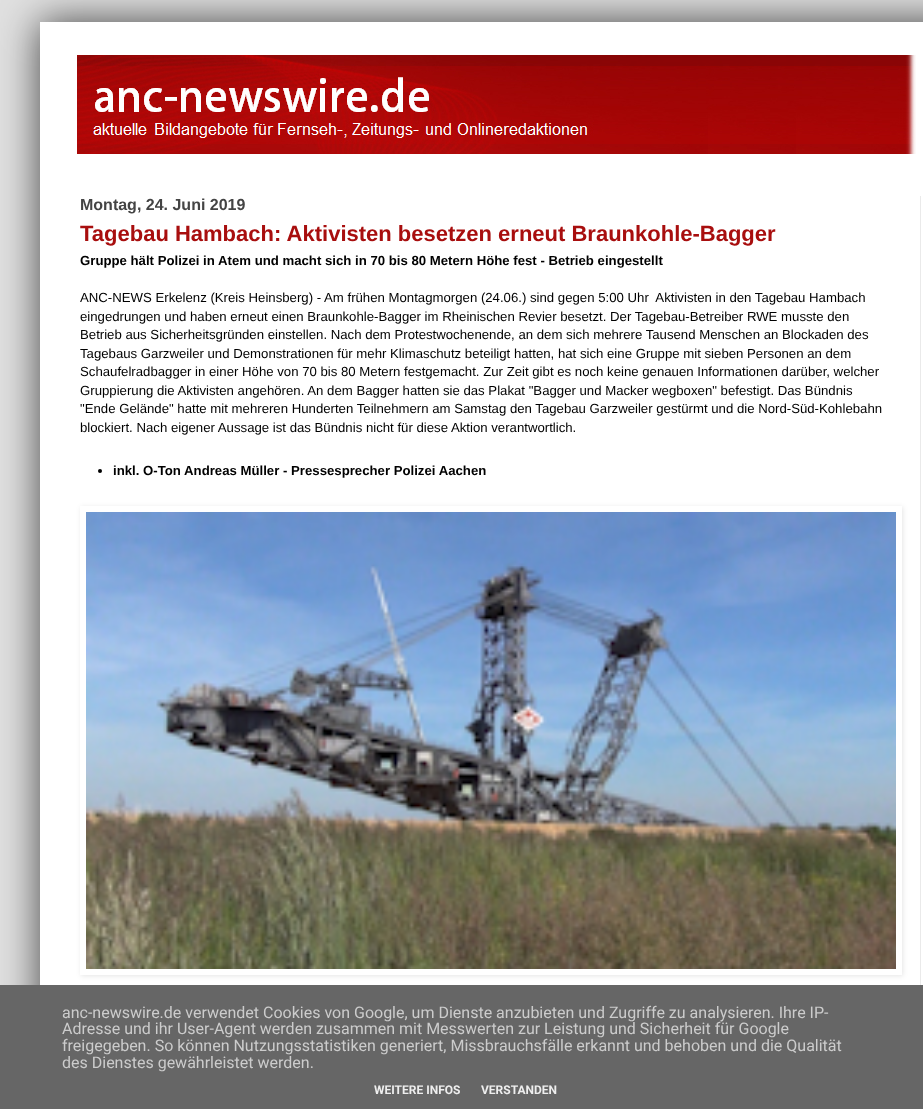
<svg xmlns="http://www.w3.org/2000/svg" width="923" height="1109">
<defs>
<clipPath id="clip1"><path d="M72 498h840v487h-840zm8 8h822v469h-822z" clip-rule="evenodd"/></clipPath>
</defs>
<rect width="100%" height="100%" fill="#e0e0e0"/>
<rect x="40" y="22" width="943" height="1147" fill="#000000b3" filter="blur(20px)"/>
<rect x="40" y="22" width="883" height="963" fill="#fff"/>
<image x="75" y="55" width="841" height="99" href="media/1.png"/>
<text x="80" y="210" style="font-family:Liberation Sans;font-size:16px;font-weight:bold;fill:#444">Montag, 24. Juni 2019</text>
<text x="80" y="241" style="font-family:Liberation Sans;font-size:22px;font-weight:bold;fill:#a80e0e">Tagebau Hambach: Aktivisten besetzen erneut Braunkohle-Bagger</text>
<text x="80" y="265" style="font-family:Liberation Sans;font-size:13.2px;font-weight:bold;fill:#000">Gruppe hält Polizei in Atem und macht sich in 70 bis 80 Metern Höhe fest - Betrieb eingestellt</text>
<text x="80" y="302" style="font-family:Liberation Sans;font-size:13.2px;fill:#000" xml:space="preserve">ANC-NEWS Erkelenz (Kreis Heinsberg) - Am frühen Montagmorgen (24.06.) sind gegen 5:00 Uhr  Aktivisten in den Tagebau Hambach</text>
<text x="80" y="321" style="font-family:Liberation Sans;font-size:13.2px;fill:#000">eingedrungen und haben erneut einen Braunkohle-Bagger im Rheinischen Revier besetzt. Der Tagebau-Betreiber RWE musste den</text>
<text x="80" y="339" style="font-family:Liberation Sans;font-size:13.2px;fill:#000">Betrieb aus Sicherheitsgründen einstellen. Nach dem Protestwochenende, an dem sich mehrere Tausend Menschen an Blockaden des</text>
<text x="80" y="358" style="font-family:Liberation Sans;font-size:13.2px;fill:#000">Tagebaus Garzweiler und Demonstrationen für mehr Klimaschutz beteiligt hatten, hat sich eine Gruppe mit sieben Personen an dem</text>
<text x="80" y="376" style="font-family:Liberation Sans;font-size:13.2px;fill:#000">Schaufelradbagger in einer Höhe von 70 bis 80 Metern festgemacht. Zur Zeit gibt es noch keine genauen Informationen darüber, welcher</text>
<text x="80" y="395" style="font-family:Liberation Sans;font-size:13.2px;fill:#000">Gruppierung die Aktivisten angehören. An dem Bagger hatten sie das Plakat "Bagger und Macker wegboxen" befestigt. Das Bündnis</text>
<text x="80" y="413" style="font-family:Liberation Sans;font-size:13.2px;fill:#000">"Ende Gelände" hatte mit mehreren Hunderten Teilnehmern am Samstag den Tagebau Garzweiler gestürmt und die Nord-Süd-Kohlebahn</text>
<text x="80" y="432" style="font-family:Liberation Sans;font-size:13.2px;fill:#000">blockiert. Nach eigener Aussage ist das Bündnis nicht für diese Aktion verantwortlich.</text>
<circle cx="100" cy="471" r="2" fill="#000"/>
<text x="113" y="475" style="font-family:Liberation Sans;font-size:13.2px;font-weight:bold;fill:#000">inkl. O-Ton Andreas Müller - Pressesprecher Polizei Aachen</text>
<g clip-path="url(#clip1)">
<rect x="81" y="507" width="822" height="469" fill="#0000001a" filter="blur(2.5px)"/>
</g>
<image x="86" y="512" width="810" height="457" href="media/2.png"/>
<rect x="920" y="196" width="1" height="789" fill="#eaeaea"/>
<rect y="985" width="923" height="124" fill="#666"/>
<text x="62" y="1018" style="font-family:Roboto;font-size:16px;fill:#ccc">anc-newswire.de verwendet Cookies von Google, um Dienste anzubieten und Zugriffe zu analysieren. Ihre IP-</text>
<text x="62" y="1034" style="font-family:Roboto;font-size:16px;fill:#ccc">Adresse und ihr User-Agent werden zusammen mit Messwerten zur Leistung und Sicherheit für Google</text>
<text x="62" y="1051" style="font-family:Roboto;font-size:16px;fill:#ccc">freigegeben. So können Nutzungsstatistiken generiert, Missbrauchsfälle erkannt und behoben und die Qualität</text>
<text x="62" y="1068" style="font-family:Roboto;font-size:16px;fill:#ccc">des Dienstes gewährleistet werden.</text>
<text x="374" y="1094" style="font-family:Roboto;font-size:12px;font-weight:bold;fill:#eee">WEITERE INFOS</text>
<text x="481" y="1094" style="font-family:Roboto;font-size:12px;font-weight:bold;fill:#eee">VERSTANDEN</text>
</svg>
